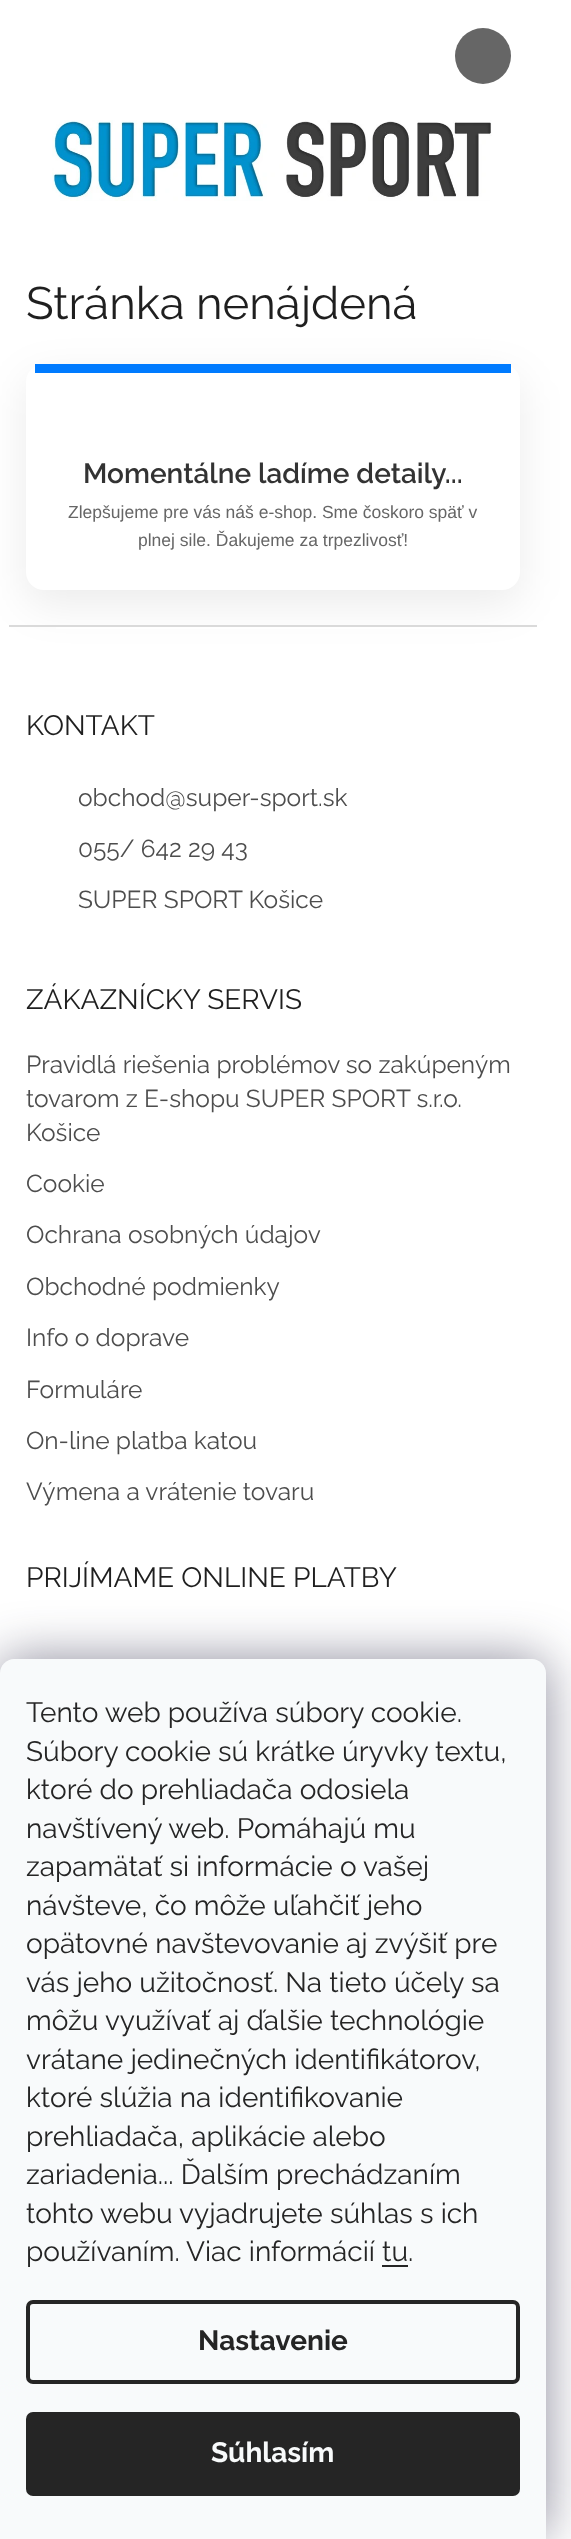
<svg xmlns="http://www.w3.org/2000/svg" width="571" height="2539">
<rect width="100%" height="100%" fill="#fff"/>
<circle cx="483" cy="56" r="28" fill="#666"/>
<image x="52" y="120" width="440" height="81" href="media/1.png"/>
<rect x="26" y="378" width="494" height="226" rx="18" fill="#00000014" filter="blur(22px)"/>
<text x="26" y="319" style="font-family:Raleway;font-size:45.5px;fill:#1f1f1f">Stránka nenájdená</text>
<rect x="26" y="364" width="494" height="226" rx="18" fill="#fff"/>
<rect x="35" y="364" width="476" height="9" fill="#007bff"/>
<text x="83" y="483" style="font-family:Raleway;font-size:28px;font-weight:600;fill:#333">Momentálne ladíme detaily...</text>
<text x="68" y="518" style="font-family:Liberation Sans;font-size:17.5px;fill:#666">Zlepšujeme pre vás náš e-shop. Sme čoskoro späť v</text>
<text x="138" y="546" style="font-family:Liberation Sans;font-size:17.5px;fill:#666">plnej sile. Ďakujeme za trpezlivosť!</text>
<rect x="56" y="627" width="434" height="2" fill="#fff"/>
<rect x="9" y="625" width="528" height="2" fill="#dadada"/>
<text x="26" y="735" style="font-family:Raleway;font-size:28px;fill:#1f1f1f">KONTAKT</text>
<text x="78" y="806" style="font-family:Raleway;font-size:24.5px;fill:#4d4d4d">obchod@super-sport.sk</text>
<text x="78" y="857" style="font-family:Raleway;font-size:24.5px;fill:#4d4d4d">055/ 642 29 43</text>
<text x="78" y="908" style="font-family:Raleway;font-size:24.5px;fill:#4d4d4d">SUPER SPORT Košice</text>
<text x="26" y="1009" style="font-family:Raleway;font-size:28px;fill:#1f1f1f">ZÁKAZNÍCKY SERVIS</text>
<text x="26" y="1073" style="font-family:Raleway;font-size:24.5px;fill:#4d4d4d">Pravidlá riešenia problémov so zakúpeným</text>
<text x="26" y="1107" style="font-family:Raleway;font-size:24.5px;fill:#4d4d4d">tovarom z E-shopu SUPER SPORT s.r.o.</text>
<text x="26" y="1141" style="font-family:Raleway;font-size:24.5px;fill:#4d4d4d">Košice</text>
<text x="26" y="1192" style="font-family:Raleway;font-size:24.5px;fill:#4d4d4d">Cookie</text>
<text x="26" y="1243" style="font-family:Raleway;font-size:24.5px;fill:#4d4d4d">Ochrana osobných údajov</text>
<text x="26" y="1295" style="font-family:Raleway;font-size:24.5px;fill:#4d4d4d">Obchodné podmienky</text>
<text x="26" y="1346" style="font-family:Raleway;font-size:24.5px;fill:#4d4d4d">Info o doprave</text>
<text x="26" y="1398" style="font-family:Raleway;font-size:24.5px;fill:#4d4d4d">Formuláre</text>
<text x="26" y="1449" style="font-family:Raleway;font-size:24.5px;fill:#4d4d4d">On-line platba katou</text>
<text x="26" y="1500" style="font-family:Raleway;font-size:24.5px;fill:#4d4d4d">Výmena a vrátenie tovaru</text>
<text x="26" y="1587" style="font-family:Raleway;font-size:28px;fill:#1f1f1f">PRIJÍMAME ONLINE PLATBY</text>
<rect y="1659" width="546" height="880" rx="14" fill="#1b193980" filter="blur(26px)"/>
<path d="M14 1659h518c7.5 0 14 6.5 14 14v866h-546v-866c0-7.5 6.5-14 14-14z" fill="#f8fafb"/>
<text x="26" y="1722" style="font-family:Raleway;font-size:28px;fill:#252525">Tento web používa súbory cookie.</text>
<text x="26" y="1761" style="font-family:Raleway;font-size:28px;fill:#252525">Súbory cookie sú krátke úryvky textu,</text>
<text x="26" y="1799" style="font-family:Raleway;font-size:28px;fill:#252525">ktoré do prehliadača odosiela</text>
<text x="26" y="1838" style="font-family:Raleway;font-size:28px;fill:#252525">navštívený web. Pomáhajú mu</text>
<text x="26" y="1876" style="font-family:Raleway;font-size:28px;fill:#252525">zapamätať si informácie o vašej</text>
<text x="26" y="1915" style="font-family:Raleway;font-size:28px;fill:#252525">návšteve, čo môže uľahčiť jeho</text>
<text x="26" y="1953" style="font-family:Raleway;font-size:28px;fill:#252525">opätovné navštevovanie aj zvýšiť pre</text>
<text x="26" y="1992" style="font-family:Raleway;font-size:28px;fill:#252525">vás jeho užitočnosť. Na tieto účely sa</text>
<text x="26" y="2030" style="font-family:Raleway;font-size:28px;fill:#252525">môžu využívať aj ďalšie technológie</text>
<text x="26" y="2069" style="font-family:Raleway;font-size:28px;fill:#252525">vrátane jedinečných identifikátorov,</text>
<text x="26" y="2107" style="font-family:Raleway;font-size:28px;fill:#252525">ktoré slúžia na identifikovanie</text>
<text x="26" y="2146" style="font-family:Raleway;font-size:28px;fill:#252525">prehliadača, aplikácie alebo</text>
<text x="26" y="2184" style="font-family:Raleway;font-size:28px;fill:#252525">zariadenia... Ďalším prechádzaním</text>
<text x="26" y="2223" style="font-family:Raleway;font-size:28px;fill:#252525">tohto webu vyjadrujete súhlas s ich</text>
<text x="26" y="2261" style="font-family:Raleway;font-size:28px;fill:#252525">používaním. Viac informácií tu.</text>
<rect x="382" y="2265" width="26" height="2" fill="#252525"/>
<rect x="28" y="2302" width="490" height="80" rx="5" fill="none" stroke="#252525" stroke-width="4"/>
<text x="198" y="2350" style="font-family:Raleway;font-size:28px;font-weight:bold;fill:#252525">Nastavenie</text>
<rect x="26" y="2412" width="494" height="84" rx="7" fill="#252525"/>
<text x="211" y="2462" style="font-family:Raleway;font-size:28px;font-weight:bold;fill:#f8fafb">Súhlasím</text>
</svg>
